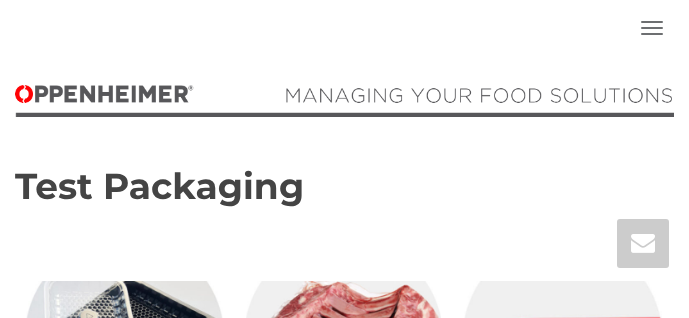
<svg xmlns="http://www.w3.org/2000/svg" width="689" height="318">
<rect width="100%" height="100%" fill="#fff"/>
<rect x="641" y="21" width="22" height="2" rx="1" fill="#6d6f71"/>
<rect x="641" y="27" width="22" height="2" rx="1" fill="#6d6f71"/>
<rect x="641" y="33" width="22" height="2" rx="1" fill="#6d6f71"/>
<image x="15" y="85" width="659" height="32" href="media/1.png"/>
<text x="15" y="199" style="font-family:Montserrat;font-size:36px;font-weight:bold;fill:#444">Test Packaging</text>
<image x="26" y="281" width="197" height="37" href="media/2.png"/>
<image x="246" y="281" width="195" height="37" href="media/3.png"/>
<image x="464" y="281" width="198" height="37" href="media/4.png"/>
<rect x="617" y="219" width="52" height="49" rx="3" fill="#ccc"/>
<image x="631" y="234" width="24" height="19" href="media/5.png"/>
</svg>
